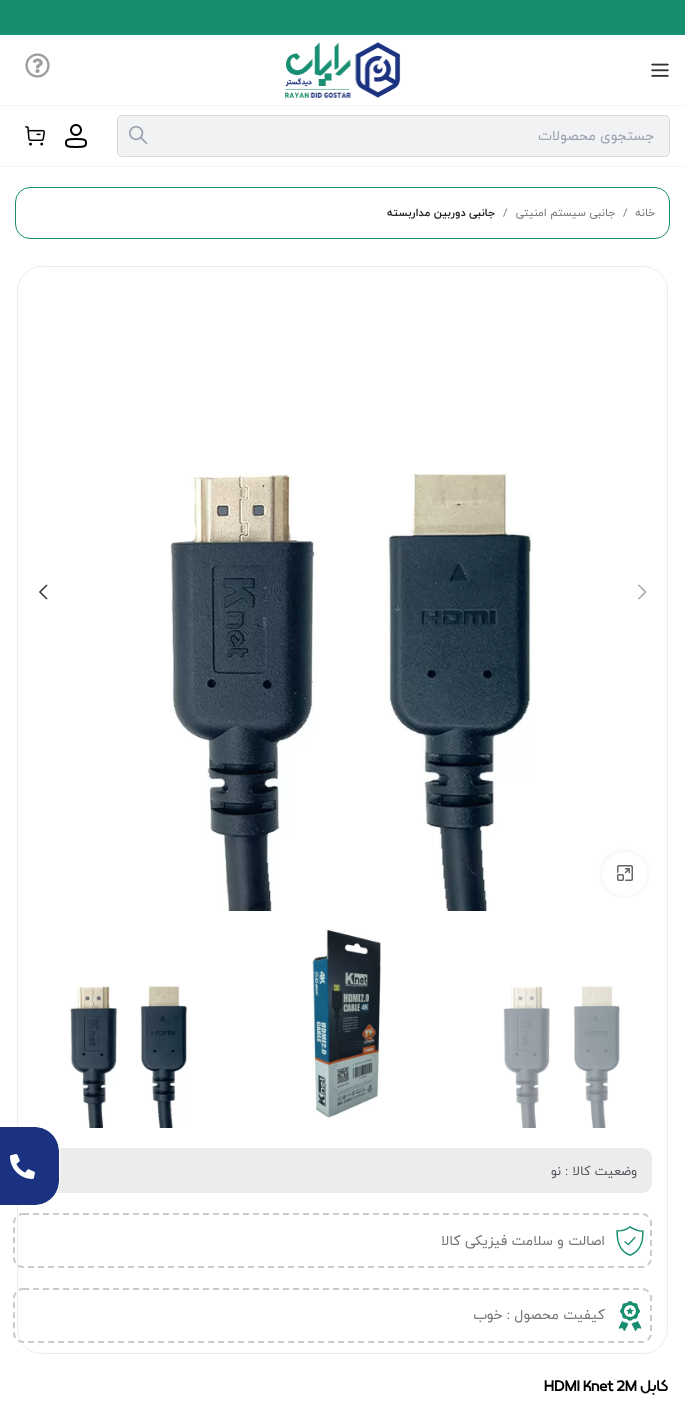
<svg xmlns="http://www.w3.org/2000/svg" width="685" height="1408">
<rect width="100%" height="100%" fill="#fff"/>
<rect width="685" height="35" fill="#188e71"/>
<rect y="105" width="685" height="1" fill="#f3f3f3"/>
<image x="651" y="63" width="18" height="14" href="media/1.png"/>
<image x="285" y="42" width="116" height="56" href="media/2.png"/>
<image x="25" y="53" width="25" height="25" href="media/3.png"/>
<rect y="166" width="685" height="1" fill="#f3f3f3"/>
<rect x="117" y="115" width="553" height="42" rx="5" fill="#f1f2f4"/>
<rect x="117.5" y="115.5" width="552" height="41" rx="4.5" fill="none" stroke="#0000001a"/>
<text x="654" y="140" style="font-family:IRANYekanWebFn;font-size:14px;direction:rtl;fill:#9e9fb1">جستجوی محصولات</text>
<image x="129" y="125" width="19" height="20" href="media/4.png"/>
<image x="65" y="124" width="22" height="24" href="media/5.png"/>
<image x="25" y="126" width="20" height="20" href="media/6.png"/>
<rect x="15.5" y="187.5" width="654" height="51" rx="14.5" fill="none" stroke="#188e71"/>
<text x="655" y="216" style="font-family:IRANYekanWebFn;font-size:11px;direction:rtl;fill:#767676">خانه</text>
<text x="623" y="216" style="font-family:IRANYekanWebFn;font-size:11px;fill:#767676">/</text>
<text x="615" y="216" style="font-family:IRANYekanWebFn;font-size:11px;direction:rtl;fill:#767676">جانبی سیستم امنیتی</text>
<text x="503" y="216" style="font-family:IRANYekanWebFn;font-size:11px;fill:#767676">/</text>
<text x="495" y="216" style="font-family:IRANYekanWebFn;font-size:11px;font-weight:bold;direction:rtl;fill:#242424">جانبی دوربین مداربسته</text>
<rect x="17.5" y="266.5" width="650" height="1087" rx="24.5" fill="none" stroke="#ececec"/>
<image x="170" y="473" width="364" height="438" href="media/7.png"/>
<image x="638" y="584" width="9" height="16" href="media/8.png"/>
<image x="39" y="584" width="9" height="16" href="media/9.png"/>
<rect x="602" y="852" width="45" height="44" rx="22" fill="#00000014" filter="blur(2.5px)"/>
<rect x="602" y="852" width="45" height="44" rx="22" fill="#fff"/>
<image x="617" y="865" width="16" height="16" href="media/10.png"/>
<image x="503" y="986" width="117" height="142" href="media/11.png"/>
<image x="312" y="929" width="69" height="189" href="media/12.png"/>
<image x="69" y="985" width="119" height="143" href="media/13.png"/>
<rect x="13" y="1148" width="639" height="45" rx="10" fill="#ececec"/>
<text x="637" y="1175" style="font-family:IRANYekanWebFn;font-size:13px;direction:rtl;fill:#54595f">وضعیت کالا : نو</text>
<path d="M23 1214h619c5 0 9 4 9 9v35c0 5-4 9-9 9h-619c-5 0-9-4-9-9v-35c0-5 4-9 9-9z" fill="none" stroke="#cacaca" stroke-width="2" stroke-dasharray="6 4"/>
<image x="616" y="1226" width="28" height="30" href="media/14.png"/>
<text x="605" y="1245" style="font-family:IRANYekanWebFn;font-size:14px;direction:rtl;fill:#767676">اصالت و سلامت فیزیکی کالا</text>
<path d="M23 1289h619c5 0 9 4 9 9v35c0 5-4 9-9 9h-619c-5 0-9-4-9-9v-35c0-5 4-9 9-9z" fill="none" stroke="#cacaca" stroke-width="2" stroke-dasharray="6 4"/>
<image x="618" y="1301" width="24" height="30" href="media/15.png"/>
<text x="605" y="1319" style="font-family:IRANYekanWebFn;font-size:14px;direction:rtl;fill:#767676">کیفیت محصول : خوب</text>
<text x="668" y="1391" style="font-family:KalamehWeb;font-size:20px;font-weight:bold;direction:rtl;fill:#000">کابل</text>
<text x="544" y="1391" style="font-family:KalamehWeb;font-size:20px;font-weight:bold;fill:#000">HDMI Knet 2M</text>
<path d="M0 1127h35c13.5 0 24 10.5 24 24v30c0 13.5-10.5 24-24 24h-35z" fill="#1b3280"/>
<path d="M0 1126h35c14 0 25 11 25 25v30c0 14-11 25-25 25h-35zm0 1h35c13 0 24 11 24 24v30c0 13-11 24-24 24h-35z" fill="#fff" fill-rule="evenodd"/>
<image x="10" y="1154" width="25" height="25" href="media/16.png"/>
</svg>
